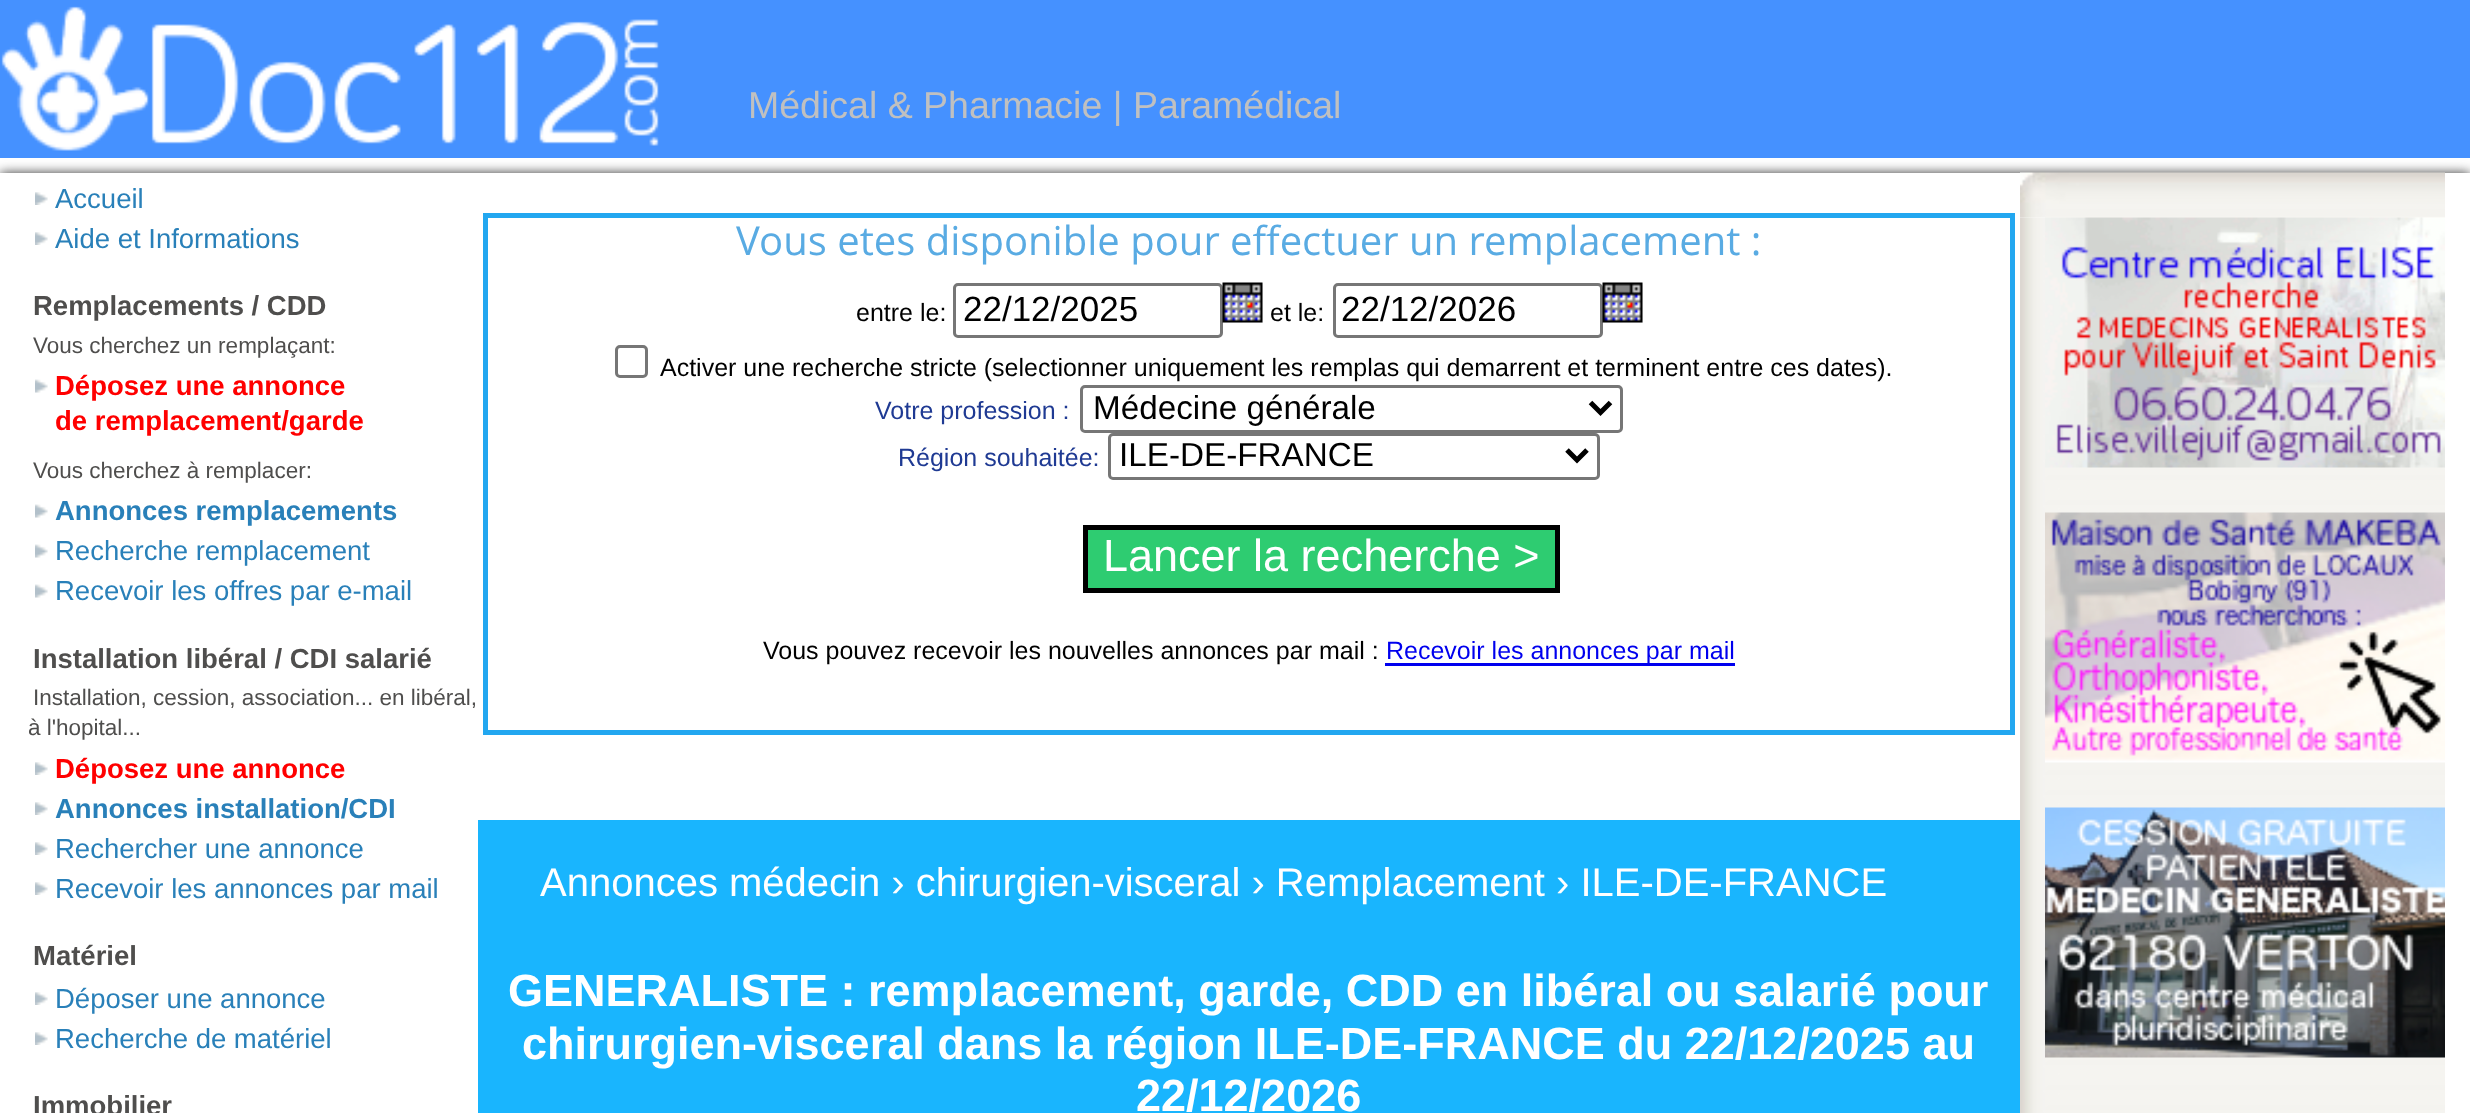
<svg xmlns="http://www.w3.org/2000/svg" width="2470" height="1113">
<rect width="100%" height="100%" fill="#fff"/>
<rect width="2470" height="158" fill="#4591ff"/>
<image x="1" y="6" width="658" height="145" href="media/1.png"/>
<text x="748" y="118" style="font-family:Liberation Sans;font-size:37.5px;fill:#c0c0c0">Médical &amp; Pharmacie | Paramédical</text>
<rect y="173" width="2470" height="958" fill="#333" filter="blur(6px)"/>
<rect y="173" width="2470" height="940" fill="#fff"/>
<image x="35" y="192" width="13" height="13" href="media/2.png"/>
<text x="55" y="208" style="font-family:Liberation Sans;font-size:27.5px;fill:#2980b9">Accueil</text>
<image x="35" y="232" width="13" height="13" href="media/2.png"/>
<text x="55" y="248" style="font-family:Liberation Sans;font-size:27.5px;fill:#2980b9">Aide et Informations</text>
<text x="33" y="315" style="font-family:Liberation Sans;font-size:27.5px;font-weight:bold;fill:#4f4e4d">Remplacements / CDD</text>
<text x="33" y="353" style="font-family:Liberation Sans;font-size:22.5px;fill:#4f4e4d">Vous cherchez un remplaçant:</text>
<image x="35" y="379" width="13" height="14" href="media/3.png"/>
<text x="55" y="395" style="font-family:Liberation Sans;font-size:27.5px;font-weight:bold;fill:#f00">Déposez une annonce</text>
<text x="55" y="430" style="font-family:Liberation Sans;font-size:27.5px;font-weight:bold;fill:#f00">de remplacement/garde</text>
<text x="33" y="478" style="font-family:Liberation Sans;font-size:22.5px;fill:#4f4e4d">Vous cherchez à remplacer:</text>
<image x="35" y="504" width="13" height="14" href="media/3.png"/>
<text x="55" y="520" style="font-family:Liberation Sans;font-size:27.5px;font-weight:bold;fill:#2980b9">Annonces remplacements</text>
<image x="35" y="544" width="13" height="14" href="media/3.png"/>
<text x="55" y="560" style="font-family:Liberation Sans;font-size:27.5px;fill:#2980b9">Recherche remplacement</text>
<image x="35" y="584" width="13" height="14" href="media/4.png"/>
<text x="55" y="600" style="font-family:Liberation Sans;font-size:27.5px;fill:#2980b9">Recevoir les offres par e-mail</text>
<text x="33" y="668" style="font-family:Liberation Sans;font-size:27.5px;font-weight:bold;fill:#4f4e4d">Installation libéral / CDI salarié</text>
<text x="33" y="705" style="font-family:Liberation Sans;font-size:22.5px;fill:#4f4e4d">Installation, cession, association... en libéral,</text>
<text x="28" y="735" style="font-family:Liberation Sans;font-size:22.5px;fill:#4f4e4d">à l'hopital...</text>
<image x="35" y="762" width="13" height="13" href="media/2.png"/>
<text x="55" y="778" style="font-family:Liberation Sans;font-size:27.5px;font-weight:bold;fill:#f00">Déposez une annonce</text>
<image x="35" y="802" width="13" height="13" href="media/2.png"/>
<text x="55" y="818" style="font-family:Liberation Sans;font-size:27.5px;font-weight:bold;fill:#2980b9">Annonces installation/CDI</text>
<image x="35" y="842" width="13" height="13" href="media/2.png"/>
<text x="55" y="858" style="font-family:Liberation Sans;font-size:27.5px;fill:#2980b9">Rechercher une annonce</text>
<image x="35" y="882" width="13" height="13" href="media/2.png"/>
<text x="55" y="898" style="font-family:Liberation Sans;font-size:27.5px;fill:#2980b9">Recevoir les annonces par mail</text>
<text x="33" y="965" style="font-family:Liberation Sans;font-size:27.5px;font-weight:bold;fill:#4f4e4d">Matériel</text>
<image x="35" y="992" width="13" height="13" href="media/2.png"/>
<text x="55" y="1008" style="font-family:Liberation Sans;font-size:27.5px;fill:#2980b9">Déposer une annonce</text>
<image x="35" y="1032" width="13" height="13" href="media/2.png"/>
<text x="55" y="1048" style="font-family:Liberation Sans;font-size:27.5px;fill:#2980b9">Recherche de matériel</text>
<text x="33" y="1115" style="font-family:Liberation Sans;font-size:27.5px;font-weight:bold;fill:#4f4e4d">Immobilier</text>
<rect x="485.5" y="215.5" width="1527" height="517" fill="none" stroke="#22a7f0" stroke-width="5"/>
<text x="736" y="255" style="font-family:Open Sans;font-size:40px;fill:#59abe3">Vous etes disponible pour effectuer un remplacement :</text>
<text x="856" y="321" style="font-family:Liberation Sans;font-size:25px;fill:#000">entre le:</text>
<rect x="954.5" y="284.5" width="267" height="52" rx="3.5" fill="none" stroke="#767676" stroke-width="3"/>
<text x="963" y="321" style="font-family:Liberation Sans;font-size:35px;fill:#000">22/12/2025</text>
<rect x="1223" y="283" width="40" height="40" fill="#efefef"/>
<image x="1222" y="282" width="41" height="41" href="media/5.png"/>
<text x="1270" y="321" style="font-family:Liberation Sans;font-size:25px;fill:#000">et le:</text>
<rect x="1334.5" y="284.5" width="267" height="52" rx="3.5" fill="none" stroke="#767676" stroke-width="3"/>
<text x="1341" y="321" style="font-family:Liberation Sans;font-size:35px;fill:#000">22/12/2026</text>
<rect x="1603" y="283" width="40" height="40" fill="#efefef"/>
<image x="1602" y="282" width="41" height="41" href="media/5.png"/>
<rect x="616.5" y="346.5" width="30" height="30" rx="3.5" fill="none" stroke="#767676" stroke-width="3"/>
<text x="660" y="376" style="font-family:Liberation Sans;font-size:25px;fill:#000">Activer une recherche stricte (selectionner uniquement les remplas qui demarrent et terminent entre ces dates).</text>
<rect x="1081.5" y="386.5" width="540" height="45" rx="3.5" fill="none" stroke="#767676" stroke-width="3"/>
<path d="M1590.5 402.5l10 10l10-10" fill="none" stroke="#000" stroke-width="5"/>
<text x="1093" y="419" style="font-family:Liberation Sans;font-size:33.25px;fill:#000">Médecine générale</text>
<text x="898" y="466" style="font-family:Liberation Sans;font-size:25px;fill:#1f3a93">Région souhaitée:</text>
<rect x="1109.5" y="434.5" width="489" height="44" rx="3.5" fill="none" stroke="#767676" stroke-width="3"/>
<path d="M1567 450l10 10l10-10" fill="none" stroke="#000" stroke-width="5"/>
<text x="1119" y="466" style="font-family:Liberation Sans;font-size:33.25px;fill:#000">ILE-DE-FRANCE</text>
<text x="875" y="419" style="font-family:Liberation Sans;font-size:25px;fill:#1f3a93">Votre profession :</text>
<rect x="1085.5" y="527.5" width="472" height="63" fill="#2ecc71" stroke="#000" stroke-width="5"/>
<text x="1103" y="571" style="font-family:Liberation Sans;font-size:45px;fill:#fff">Lancer la recherche &gt;</text>
<text x="763" y="659" style="font-family:Liberation Sans;font-size:25px;fill:#000">Vous pouvez recevoir les nouvelles annonces par mail :</text>
<rect x="1385" y="663" width="350" height="3" fill="#00e"/>
<text x="1386" y="659" style="font-family:Liberation Sans;font-size:25px;fill:#00e">Recevoir les annonces par mail</text>
<rect x="478" y="820" width="1542" height="293" fill="#19b5fe"/>
<text x="540" y="896" style="font-family:Liberation Sans;font-size:40px;fill:#fff">Annonces médecin › chirurgien-visceral › Remplacement › ILE-DE-FRANCE</text>
<text x="508" y="1006" style="font-family:Liberation Sans;font-size:45px;font-weight:bold;fill:#fff">GENERALISTE : remplacement, garde, CDD en libéral ou salarié pour</text>
<text x="522" y="1059" style="font-family:Liberation Sans;font-size:45px;font-weight:bold;fill:#fff">chirurgien-visceral dans la région ILE-DE-FRANCE du 22/12/2025 au</text>
<text x="1136" y="1111" style="font-family:Liberation Sans;font-size:45px;font-weight:bold;fill:#fff">22/12/2026</text>
<image x="2020" y="172" width="425" height="46" href="media/6.png"/>
<image x="2020" y="217" width="425" height="896" href="media/7.png"/>
<image x="2045" y="217" width="400" height="251" href="media/8.png"/>
<image x="2045" y="512" width="400" height="251" href="media/9.png"/>
<image x="2045" y="807" width="400" height="251" href="media/10.png"/>
</svg>
